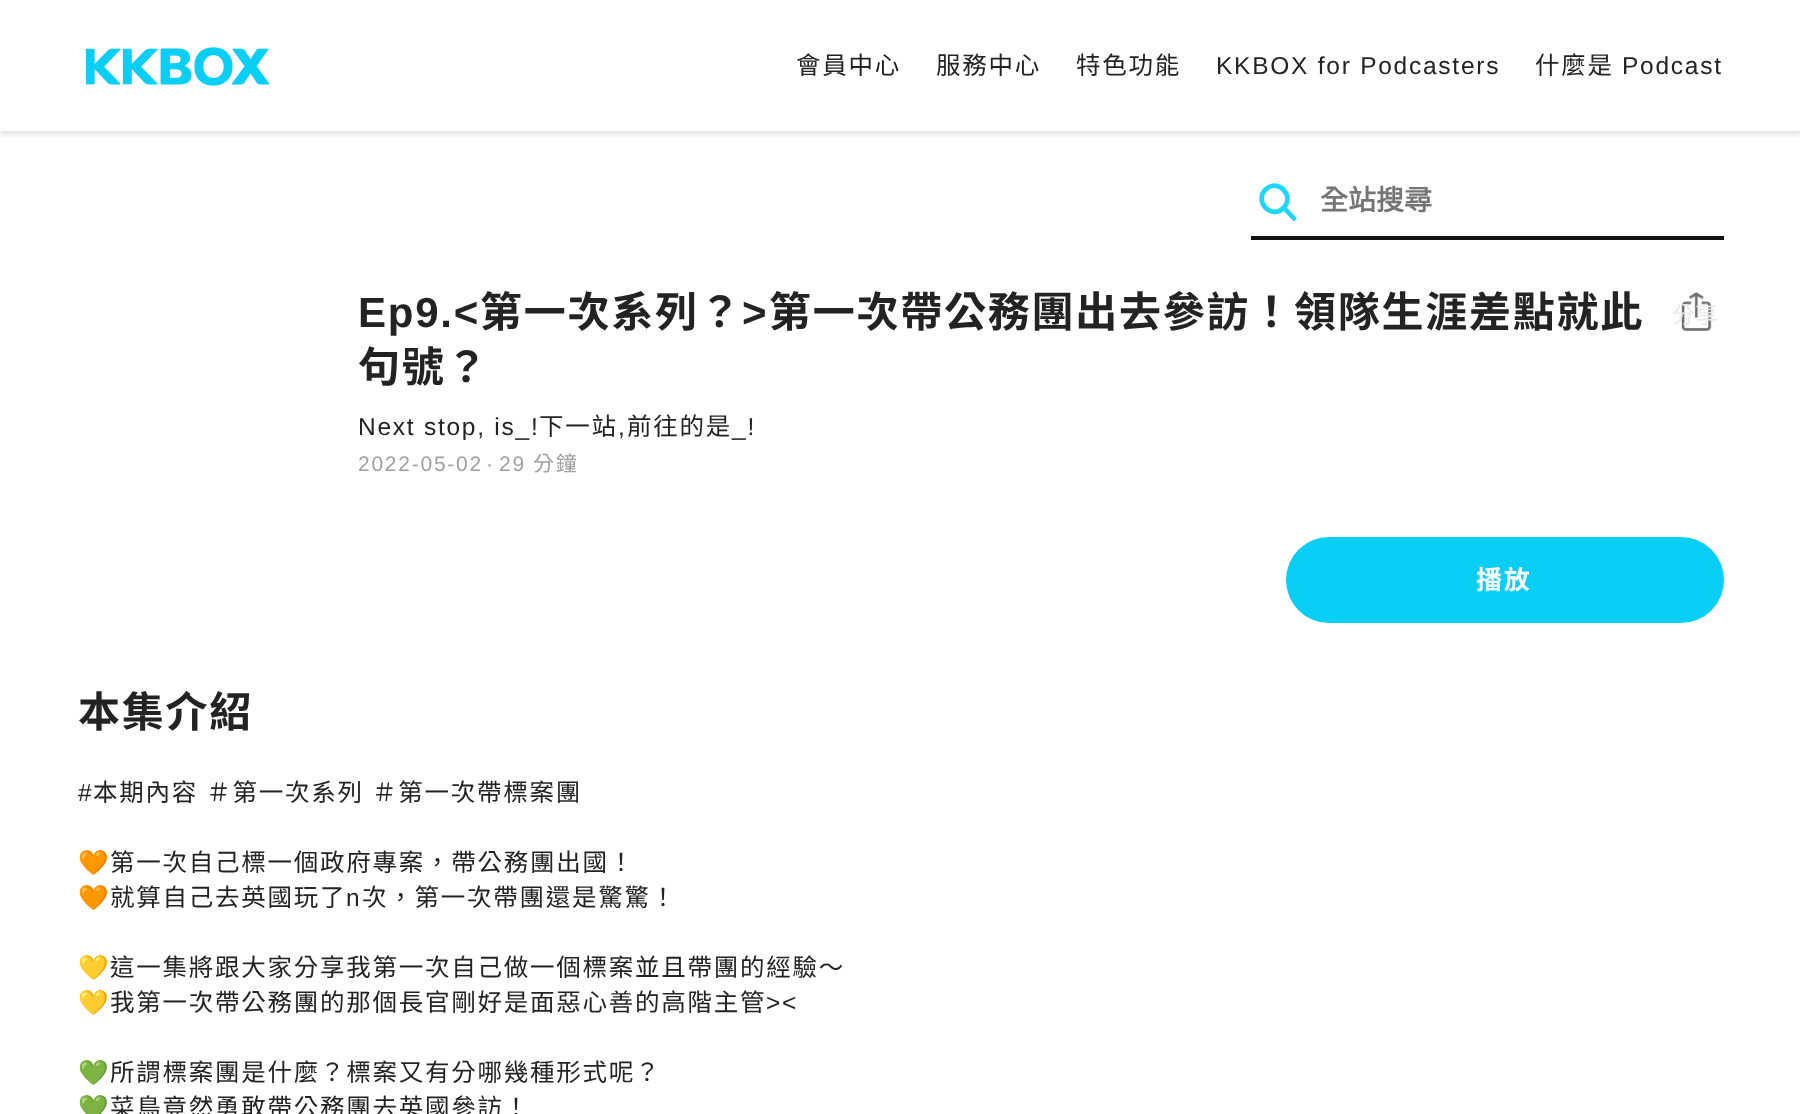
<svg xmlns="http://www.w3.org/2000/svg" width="1800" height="1114">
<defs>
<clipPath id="clip1"><rect x="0" y="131" width="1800" height="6"/></clipPath>
</defs>
<rect width="100%" height="100%" fill="#fff"/>
<g clip-path="url(#clip1)">
<rect y="4" width="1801" height="131" fill="#0000001a" filter="blur(2.5px)"/>
</g>
<image x="86" y="47" width="183" height="39" href="media/1.png"/>
<text x="796" y="74" style="font-family:Noto Sans CJK TC;font-size:24.5px;letter-spacing:1.75px;fill:#232323">會員中心</text>
<text x="936" y="74" style="font-family:Noto Sans CJK TC;font-size:24.5px;letter-spacing:1.75px;fill:#232323">服務中心</text>
<text x="1076" y="74" style="font-family:Noto Sans CJK TC;font-size:24.5px;letter-spacing:1.75px;fill:#232323">特色功能</text>
<text x="1216" y="74" style="font-family:Liberation Sans;font-size:24.5px;letter-spacing:1.75px;fill:#232323">KKBOX for Podcasters</text>
<text x="1535" y="74" style="font-family:Noto Sans CJK TC;font-size:24.5px;letter-spacing:1.75px;fill:#232323">什麼是</text>
<text x="1622" y="74" style="font-family:Liberation Sans;font-size:24.5px;letter-spacing:1.75px;fill:#232323">Podcast</text>
<rect x="1251" y="236" width="473" height="4" fill="#111"/>
<path d="M1265.5 189.5c12-12 30 6.5 18 18.5c-12 12-30-6.5-18-18.5zm19 19l9.5 10" fill="none" stroke="#1dd6ff" stroke-width="4.7" stroke-linecap="round" stroke-linejoin="round"/>
<text x="1320" y="210" style="font-family:'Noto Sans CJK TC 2';font-size:28px;font-weight:bold;fill:#757575">全站搜尋</text>
<text x="358" y="327" style="font-family:Liberation Sans;font-size:42px;font-weight:bold;letter-spacing:1.75px;fill:#232323">Ep9.&lt;</text>
<text x="480" y="327" style="font-family:Noto Sans CJK TC;font-size:42px;font-weight:bold;letter-spacing:1.75px;fill:#232323">第一次系列？</text>
<text x="742" y="327" style="font-family:Liberation Sans;font-size:42px;font-weight:bold;letter-spacing:1.75px;fill:#232323">&gt;</text>
<text x="769" y="327" style="font-family:Noto Sans CJK TC;font-size:42px;font-weight:bold;letter-spacing:1.75px;fill:#232323">第一次帶公務團出去參訪！領隊生涯差點就此</text>
<text x="358" y="382" style="font-family:Noto Sans CJK TC;font-size:42px;font-weight:bold;letter-spacing:1.75px;fill:#232323">句號？</text>
<text x="358" y="435" style="font-family:Liberation Sans;font-size:24.5px;letter-spacing:1.75px;fill:#232323">Next stop, is_!</text>
<text x="539" y="435" style="font-family:Noto Sans CJK TC;font-size:24.5px;letter-spacing:1.75px;fill:#232323">下一站</text>
<text x="618" y="435" style="font-family:Liberation Sans;font-size:24.5px;letter-spacing:1.75px;fill:#232323">,</text>
<text x="627" y="435" style="font-family:Noto Sans CJK TC;font-size:24.5px;letter-spacing:1.75px;fill:#232323">前往的是</text>
<text x="732" y="435" style="font-family:Liberation Sans;font-size:24.5px;letter-spacing:1.75px;fill:#232323">_!</text>
<text x="358" y="471" style="font-family:Liberation Sans;font-size:21px;letter-spacing:1.75px;fill:#a0a0a0">2022-05-02</text>
<text x="486" y="471" style="font-family:Liberation Sans;font-size:21px;letter-spacing:1.75px;fill:#a0a0a0">·</text>
<text x="499" y="471" style="font-family:Liberation Sans;font-size:21px;letter-spacing:1.75px;fill:#a0a0a0">29</text>
<text x="533" y="471" style="font-family:Noto Sans CJK TC;font-size:21px;letter-spacing:1.75px;fill:#a0a0a0">分鐘</text>
<image x="1681" y="292" width="31" height="39" href="media/2.png"/>
<text x="1672" y="323" style="font-family:Noto Sans CJK TC;font-size:23px;fill:#e9e9e9">分享</text>
<rect x="1286" y="537" width="438" height="86" rx="43" fill="#09cef6"/>
<text x="1476" y="589" style="font-family:Noto Sans CJK TC;font-size:26px;font-weight:bold;letter-spacing:1.75px;fill:#fff">播放</text>
<text x="78" y="727" style="font-family:Noto Sans CJK TC;font-size:42px;font-weight:bold;letter-spacing:1.75px;fill:#232323">本集介紹</text>
<text x="78" y="801" style="font-family:Liberation Sans;font-size:24.5px;letter-spacing:1.75px;fill:#232323">#</text>
<text x="93" y="801" word-spacing="1" style="font-family:Noto Sans CJK TC;font-size:24.5px;letter-spacing:1.75px;fill:#232323">本期內容 ＃第一次系列 ＃第一次帶標案團</text>
<text x="78" y="871" style="font-family:Noto Color Emoji;font-size:24.5px;letter-spacing:1.75px;fill:#232323">🧡</text>
<text x="110" y="871" style="font-family:Noto Sans CJK TC;font-size:24.5px;letter-spacing:1.75px;fill:#232323">第一次自己標一個政府專案，帶公務團出國！</text>
<text x="78" y="906" style="font-family:Noto Color Emoji;font-size:24.5px;letter-spacing:1.75px;fill:#232323">🧡</text>
<text x="110" y="906" style="font-family:Noto Sans CJK TC;font-size:24.5px;letter-spacing:1.75px;fill:#232323">就算自己去英國玩了</text>
<text x="346" y="906" style="font-family:Liberation Sans;font-size:24.5px;letter-spacing:1.75px;fill:#232323">n</text>
<text x="362" y="906" style="font-family:Noto Sans CJK TC;font-size:24.5px;letter-spacing:1.75px;fill:#232323">次，第一次帶團還是驚驚！</text>
<text x="78" y="976" style="font-family:Noto Color Emoji;font-size:24.5px;letter-spacing:1.75px;fill:#232323">💛</text>
<text x="110" y="976" style="font-family:Noto Sans CJK TC;font-size:24.5px;letter-spacing:1.75px;fill:#232323">這一集將跟大家分享我第一次自己做一個標案並且帶團的經驗～</text>
<text x="78" y="1011" style="font-family:Noto Color Emoji;font-size:24.5px;letter-spacing:1.75px;fill:#232323">💛</text>
<text x="110" y="1011" style="font-family:Noto Sans CJK TC;font-size:24.5px;letter-spacing:1.75px;fill:#232323">我第一次帶公務團的那個長官剛好是面惡心善的高階主管</text>
<text x="766" y="1011" style="font-family:Liberation Sans;font-size:24.5px;letter-spacing:1.75px;fill:#232323">&gt;&lt;</text>
<text x="78" y="1081" style="font-family:Noto Color Emoji;font-size:24.5px;letter-spacing:1.75px;fill:#232323">💚</text>
<text x="110" y="1081" style="font-family:Noto Sans CJK TC;font-size:24.5px;letter-spacing:1.75px;fill:#232323">所謂標案團是什麼？標案又有分哪幾種形式呢？</text>
<text x="78" y="1116" style="font-family:Noto Color Emoji;font-size:24.5px;letter-spacing:1.75px;fill:#232323">💚</text>
<text x="110" y="1116" style="font-family:Noto Sans CJK TC;font-size:24.5px;letter-spacing:1.75px;fill:#232323">菜鳥竟然勇敢帶公務團去英國參訪！</text>
</svg>
